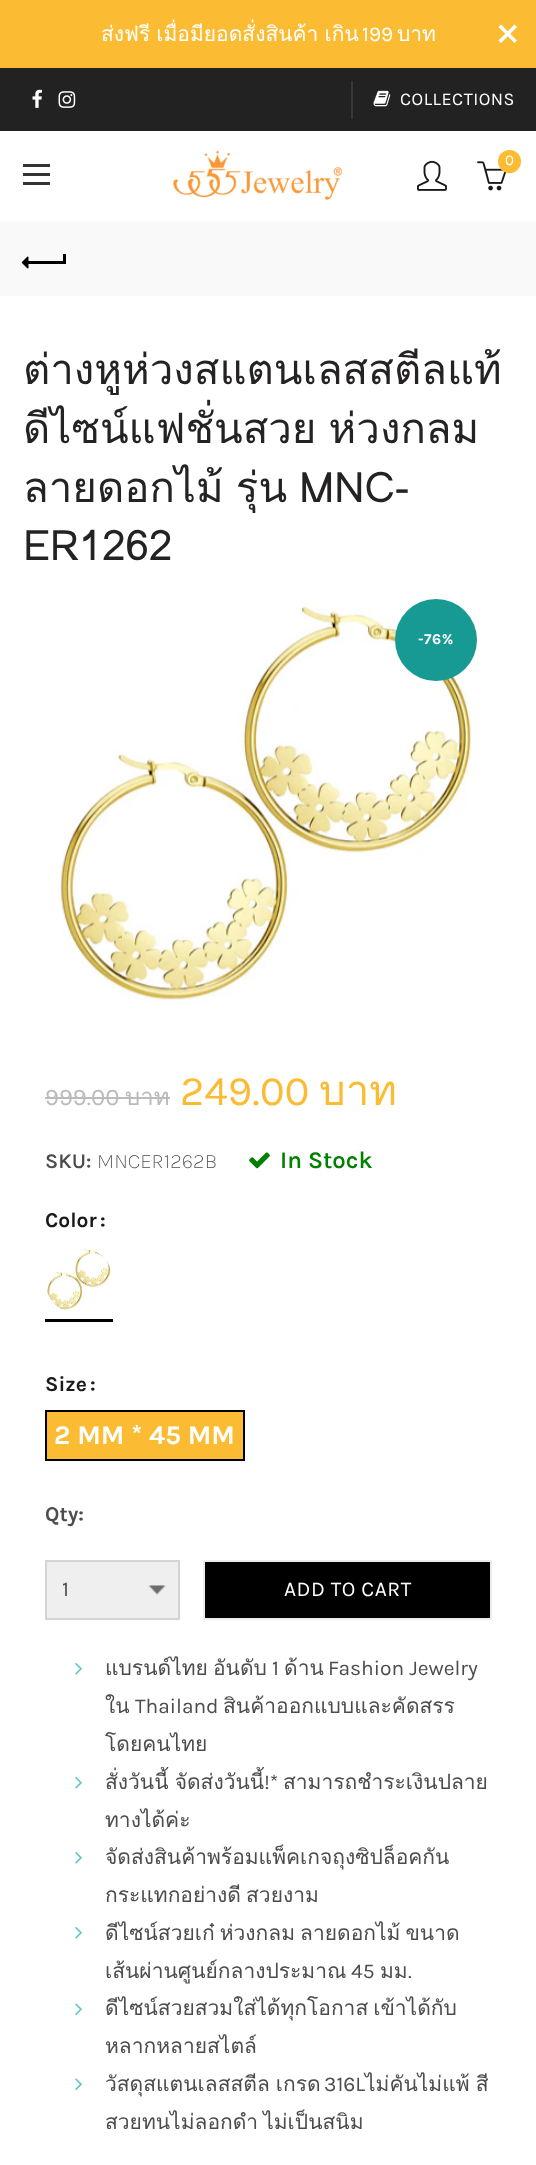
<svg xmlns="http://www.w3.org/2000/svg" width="536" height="2165">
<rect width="100%" height="100%" fill="#fff"/>
<rect width="536" height="68" fill="#fbbc34"/>
<text x="101" y="41" word-spacing="-1" style="font-family:Loma;font-size:21px;fill:#fff">ส่งฟรี เมื่อมียอดสั่งสินค้า เกิน</text>
<text x="362" y="41" style="font-family:Karla;font-size:21px;fill:#fff">199</text>
<text x="397" y="41" style="font-family:Loma;font-size:21px;fill:#fff">บาท</text>
<path d="M501 24.5l16 16l-2.5 2.5l-16-16z" fill="#fff"/>
<path d="M498.5 40.5l16-16l2.5 2.5l-16 16z" fill="#fff"/>
<rect y="68" width="536" height="63" fill="#222"/>
<image x="32" y="89" width="10" height="19" href="media/1.png"/>
<image x="58" y="91" width="18" height="17" href="media/2.png"/>
<rect x="351" y="81" width="2" height="38" fill="#383838"/>
<image x="373" y="90" width="18" height="17" href="media/3.png"/>
<text x="400" y="105" style="font-family:Karla;font-size:18px;letter-spacing:0.5px;fill:#fff">COLLECTIONS</text>
<image x="172" y="150" width="171" height="51" href="media/4.png"/>
<image x="417" y="160" width="30" height="31" href="media/5.png"/>
<image x="477" y="161" width="30" height="30" href="media/6.png"/>
<circle cx="509.5" cy="161.5" r="11.5" fill="#fbbc34"/>
<text x="505" y="165" style="font-family:Karla;font-size:15px;fill:#fff">0</text>
<rect x="23" y="173" width="27" height="3" fill="#333"/>
<rect x="23" y="164" width="27" height="3" fill="#333"/>
<rect x="23" y="182" width="27" height="3" fill="#333"/>
<rect y="221" width="536" height="75" fill="#f9f9f9"/>
<rect x="27" y="261" width="38" height="3" fill="#000"/>
<image x="21" y="256" width="8" height="13" href="media/7.png"/>
<rect x="63" y="254" width="3" height="10" fill="#000"/>
<text x="23" y="384" style="font-family:Loma;font-size:42px;fill:#252222">ต่างหูห่วงสแตนเลสสตีลแท้</text>
<text x="23" y="443" word-spacing="-2" style="font-family:Loma;font-size:42px;fill:#252222">ดีไซน์แฟชั่นสวย ห่วงกลม</text>
<text x="23" y="502" word-spacing="-2" style="font-family:Loma;font-size:42px;fill:#252222">ลายดอกไม้ รุ่น MNC-</text>
<text x="23" y="560" style="font-family:Loma;font-size:42px;fill:#252222">ER1262</text>
<image x="58" y="602" width="415" height="402" href="media/8.png"/>
<circle cx="436" cy="640" r="41" fill="#179a94"/>
<text x="418" y="644" style="font-family:Karla;font-size:15px;font-weight:bold;letter-spacing:0.5px;fill:#fff">-76%</text>
<text x="45" y="1105" style="font-family:Karla;font-size:24px;fill:#bbb">999.00</text>
<text x="125" y="1105" style="font-family:Loma;font-size:24px;fill:#bbb">บาท</text>
<rect x="45" y="1097" width="125" height="2" fill="#bbb"/>
<text x="180" y="1105" style="font-family:Karla;font-size:42px;fill:#fbbc34">249.00</text>
<text x="319" y="1105" style="font-family:Loma;font-size:42px;fill:#fbbc34">บาท</text>
<text x="45" y="1168" style="font-family:Karla;font-size:21px;font-weight:600;fill:#4c4c4c">SKU:</text>
<text x="97" y="1168" style="font-family:Karla;font-size:21px;font-weight:200;fill:#4c4c4c">MNCER1262B</text>
<image x="249" y="1152" width="21" height="17" href="media/9.png"/>
<text x="280" y="1168" style="font-family:Karla;font-size:24px;font-weight:600;fill:#008000">In Stock</text>
<text x="45" y="1227" style="font-family:Karla;font-size:21px;font-weight:bold;fill:#1b1919">Color</text>
<text x="100" y="1227" style="font-family:Karla;font-size:21px;font-weight:bold;fill:#1b1919">:</text>
<image x="46" y="1248" width="65" height="63" href="media/10.png"/>
<rect x="45" y="1319" width="68" height="3" fill="#000"/>
<text x="45" y="1391" style="font-family:Karla;font-size:21px;font-weight:bold;fill:#1b1919">Size</text>
<text x="90" y="1391" style="font-family:Karla;font-size:21px;font-weight:bold;fill:#1b1919">:</text>
<rect x="46" y="1411" width="198" height="49" fill="#fbbc34" stroke="#000" stroke-width="2"/>
<text x="54" y="1444" style="font-family:Karla;font-size:27px;font-weight:bold;fill:#fff">2 MM * 45 MM</text>
<text x="45" y="1521" style="font-family:Karla;font-size:21px;font-weight:bold;fill:#4c4c4c">Qty:</text>
<rect x="47" y="1562" width="131" height="56" fill="#efefef"/>
<image x="148" y="1585" width="18" height="10" href="media/11.png"/>
<rect x="46" y="1561" width="133" height="58" fill="none" stroke="#d4d4d4" stroke-width="2"/>
<text x="62" y="1596" style="font-family:Karla;font-size:21px;fill:#4c4c4c">1</text>
<rect x="204" y="1561" width="287" height="58" fill="#000" stroke="#ececec" stroke-width="2"/>
<text x="284" y="1596" style="font-family:Karla;font-size:21px;letter-spacing:0.5px;fill:#fff">ADD TO CART</text>
<image x="75" y="1663" width="7" height="12" href="media/12.png"/>
<text x="105" y="1675" style="font-family:Loma;font-size:21px;fill:#4c4c4c">แบรนด์ไทย</text>
<text x="213" y="1675" style="font-family:Loma;font-size:21px;fill:#4c4c4c">อันดับ</text>
<text x="272" y="1675" style="font-family:Karla;font-size:21px;fill:#4c4c4c">1</text>
<text x="284" y="1675" style="font-family:Loma;font-size:21px;fill:#4c4c4c">ด้าน</text>
<text x="328" y="1675" style="font-family:Karla;font-size:21px;fill:#4c4c4c">Fashion Jewelry</text>
<text x="105" y="1713" style="font-family:Loma;font-size:21px;fill:#4c4c4c">ใน</text>
<text x="135" y="1713" style="font-family:Karla;font-size:21px;fill:#4c4c4c">Thailand</text>
<text x="223" y="1713" style="font-family:Loma;font-size:21px;fill:#4c4c4c">สินค้าออกแบบและคัดสรร</text>
<text x="105" y="1751" style="font-family:Loma;font-size:21px;fill:#4c4c4c">โดยคนไทย</text>
<image x="75" y="1777" width="7" height="12" href="media/12.png"/>
<text x="105" y="1789" word-spacing="-1" style="font-family:Loma;font-size:21px;fill:#4c4c4c">สั่งวันนี้ จัดส่งวันนี้</text>
<text x="264" y="1789" style="font-family:Karla;font-size:21px;fill:#4c4c4c">!*</text>
<text x="283" y="1789" style="font-family:Loma;font-size:21px;fill:#4c4c4c">สามารถชำระเงินปลาย</text>
<text x="105" y="1827" style="font-family:Loma;font-size:21px;fill:#4c4c4c">ทางได้ค่ะ</text>
<image x="75" y="1852" width="7" height="12" href="media/12.png"/>
<text x="105" y="1864" style="font-family:Loma;font-size:21px;fill:#4c4c4c">จัดส่งสินค้าพร้อมแพ็คเกจถุงซิปล็อคกัน</text>
<text x="105" y="1902" word-spacing="-2" style="font-family:Loma;font-size:21px;fill:#4c4c4c">กระแทกอย่างดี สวยงาม</text>
<image x="75" y="1927" width="7" height="12" href="media/12.png"/>
<text x="105" y="1940" word-spacing="-2" style="font-family:Loma;font-size:21px;fill:#4c4c4c">ดีไซน์สวยเก๋ ห่วงกลม ลายดอกไม้ ขนาด</text>
<text x="105" y="1978" style="font-family:Loma;font-size:21px;fill:#4c4c4c">เส้นผ่านศูนย์กลางประมาณ</text>
<text x="351" y="1978" style="font-family:Karla;font-size:21px;fill:#4c4c4c">45</text>
<text x="380" y="1978" style="font-family:Loma;font-size:21px;fill:#4c4c4c">มม</text>
<text x="408" y="1978" style="font-family:Karla;font-size:21px;fill:#4c4c4c">.</text>
<image x="75" y="2003" width="7" height="12" href="media/13.png"/>
<text x="105" y="2015" word-spacing="-2" style="font-family:Loma;font-size:21px;fill:#4c4c4c">ดีไซน์สวยสวมใส่ได้ทุกโอกาส เข้าได้กับ</text>
<text x="105" y="2053" style="font-family:Loma;font-size:21px;fill:#4c4c4c">หลากหลายสไตล์</text>
<image x="75" y="2078" width="7" height="12" href="media/13.png"/>
<text x="105" y="2091" word-spacing="-1" style="font-family:Loma;font-size:21px;fill:#4c4c4c">วัสดุสแตนเลสสตีล เกรด</text>
<text x="324" y="2091" style="font-family:Karla;font-size:21px;fill:#4c4c4c">316L</text>
<text x="365" y="2091" word-spacing="-1" style="font-family:Loma;font-size:21px;fill:#4c4c4c">ไม่คันไม่แพ้ สี</text>
<text x="105" y="2129" word-spacing="-2" style="font-family:Loma;font-size:21px;fill:#4c4c4c">สวยทนไม่ลอกดำ ไม่เป็นสนิม</text>
</svg>
